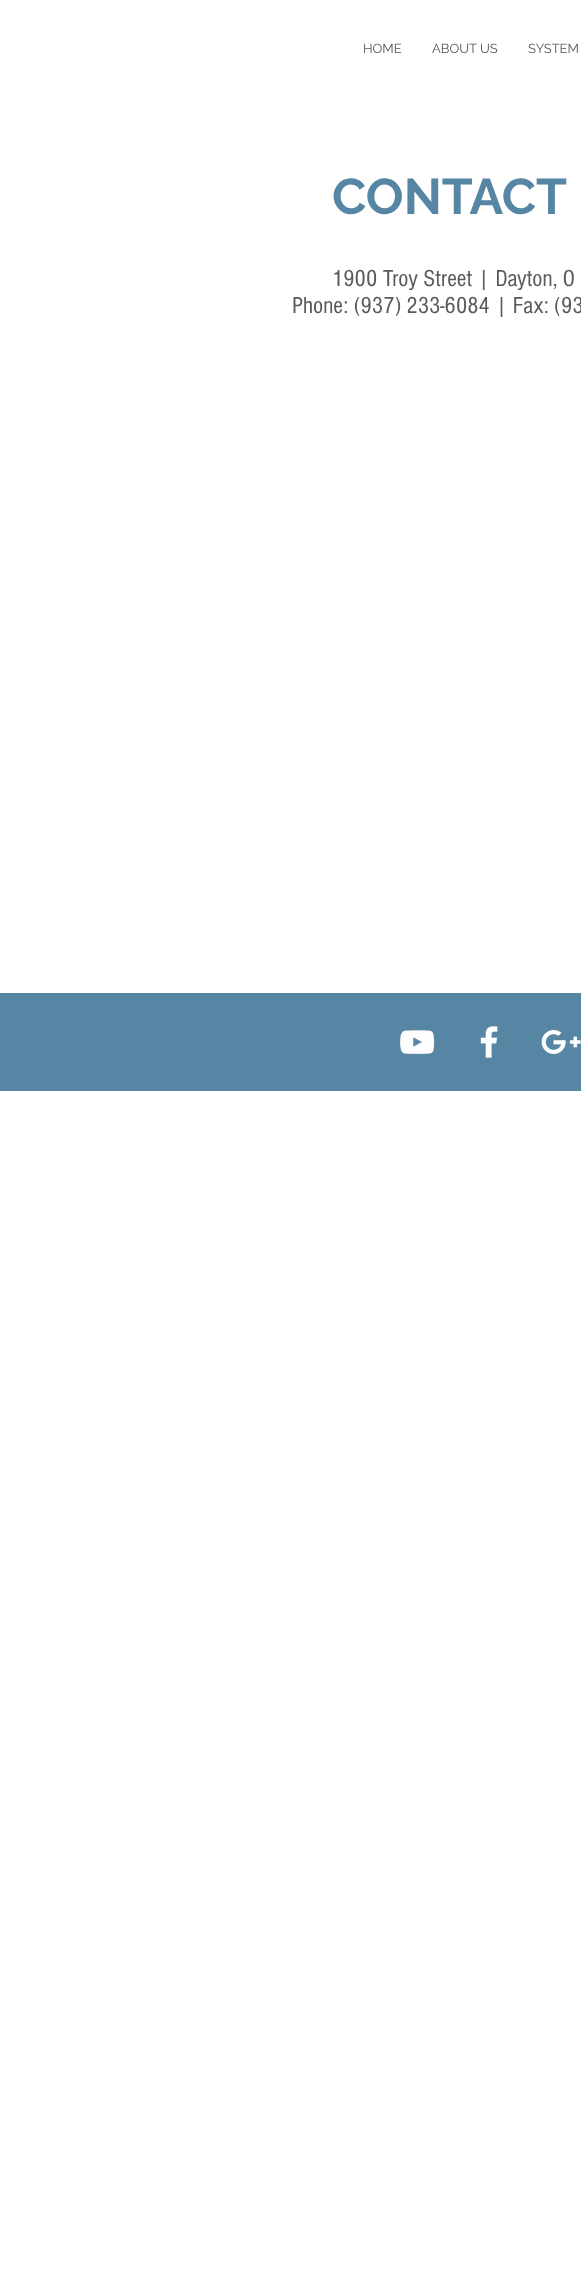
<svg xmlns="http://www.w3.org/2000/svg" width="581" height="2288">
<rect width="100%" height="100%" fill="#fff"/>
<text x="363" y="53" style="font-family:Raleway;font-size:13px;fill:#555">HOME</text>
<text x="432" y="53" style="font-family:Raleway;font-size:13px;fill:#555">ABOUT US</text>
<text x="528" y="53" style="font-family:Raleway;font-size:13px;fill:#555">SYSTEM</text>
<text x="332" y="214" style="font-family:Raleway;font-size:50px;font-weight:bold;fill:#5786a4">CONTACT</text>
<text x="332" y="286" style="font-family:'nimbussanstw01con';font-size:24px;fill:#595a5b">1900 Troy Street | Dayton, O</text>
<text x="292" y="313" style="font-family:'nimbussanstw01con';font-size:24px;fill:#595a5b">Phone: (937) 233-6084 | Fax: (93</text>
<rect y="993" width="581" height="98" fill="#5786a4"/>
<image x="400" y="1030" width="35" height="25" href="media/1.png"/>
<image x="480" y="1026" width="18" height="32" href="media/2.png"/>
<image x="541" y="1029" width="40" height="26" href="media/3.png"/>
</svg>
